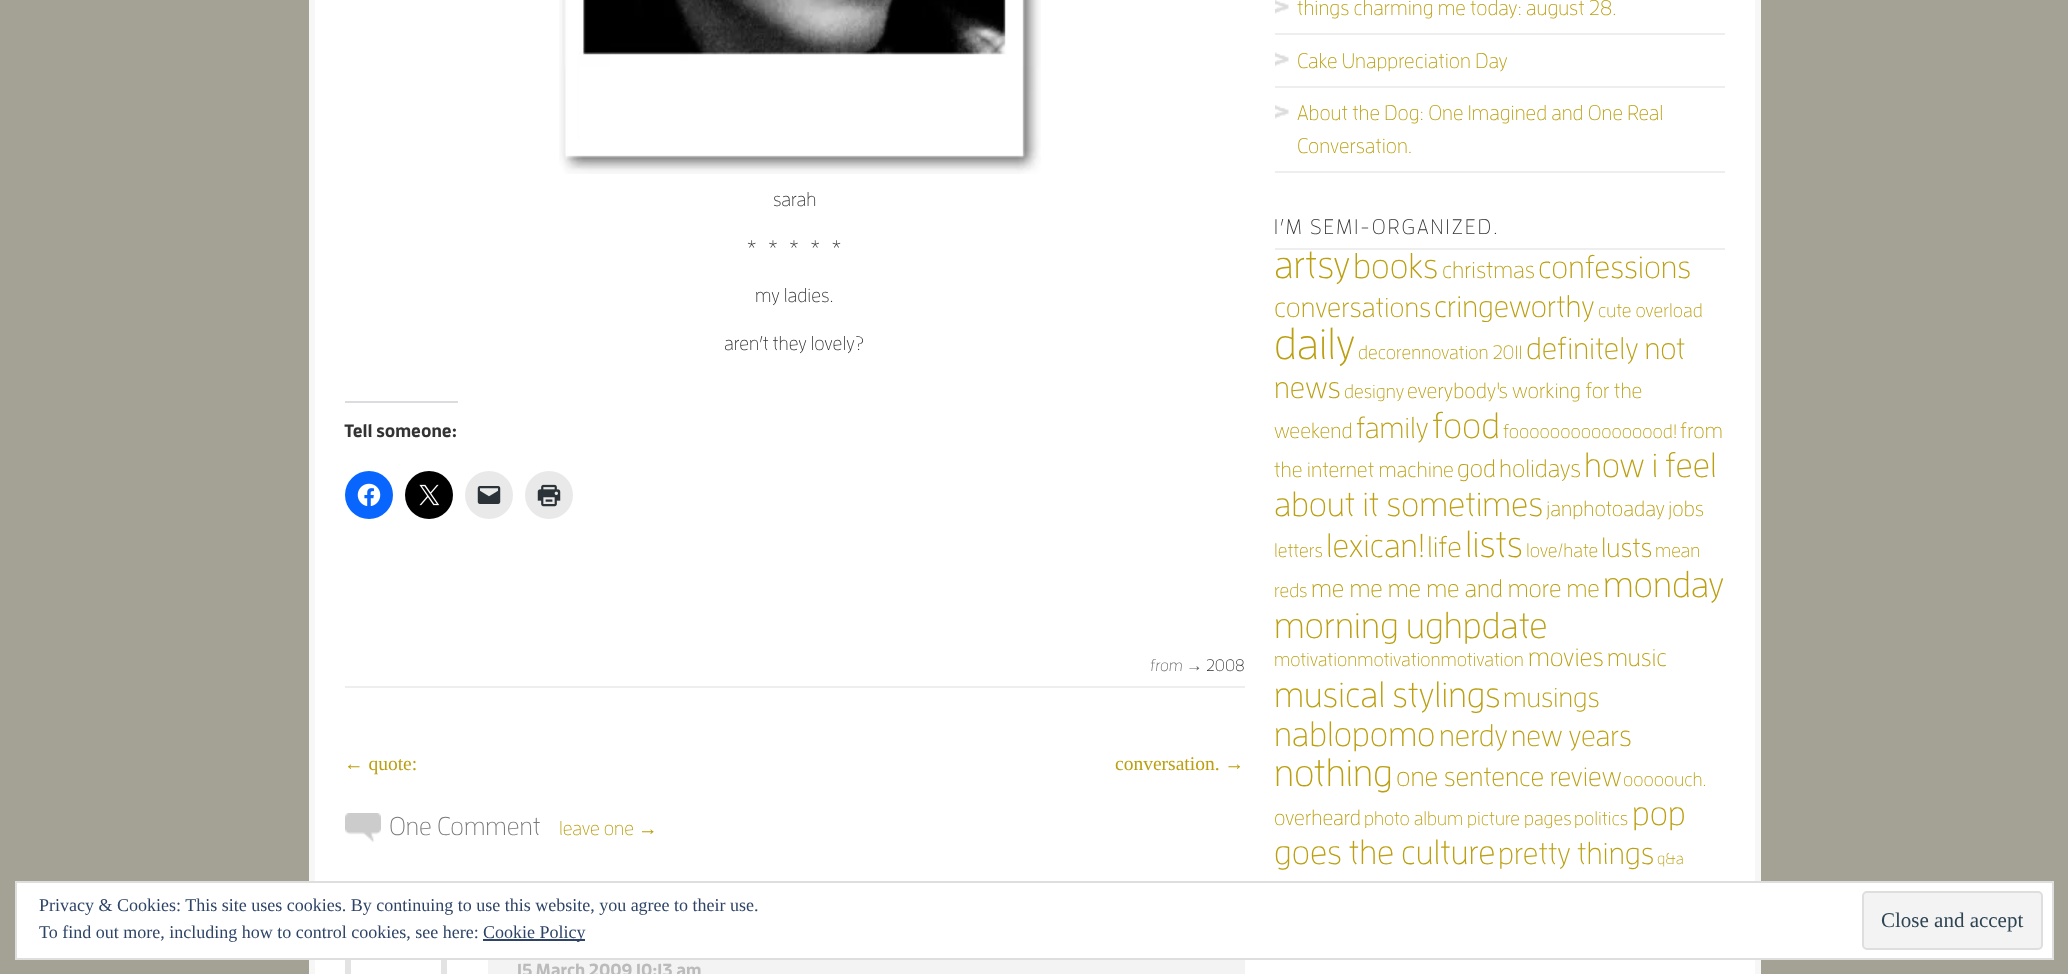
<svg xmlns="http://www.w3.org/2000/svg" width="2068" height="974">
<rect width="100%" height="100%" fill="#a4a294"/>
<rect x="315" width="1440" height="974" fill="#fff"/>
<rect x="1755" width="6" height="974" fill="#f8f7f7"/>
<rect x="309" width="6" height="974" fill="#f8f7f7"/>
<image x="559" y="0" width="482" height="174" href="media/1.png"/>
<text x="773" y="206" style="font-family:'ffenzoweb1';font-size:19.5px;fill:#333">sarah</text>
<text x="747" y="254" style="font-family:'ffenzoweb1';font-size:19.5px;fill:#333" xml:space="preserve">*   *   *   *   *</text>
<text x="755" y="302" style="font-family:'ffenzoweb1';font-size:19.5px;fill:#333">my ladies.</text>
<text x="724" y="350" style="font-family:'ffenzoweb1';font-size:19.5px;fill:#333">aren’t they lovely?</text>
<rect x="345" y="401" width="113" height="2" fill="#dcdcde"/>
<text x="344" y="437" style="font-family:'ffenzoweb1';font-size:18px;font-weight:bold;fill:#333">Tell someone:</text>
<circle cx="369" cy="495" r="24" fill="#0866ff"/>
<image x="357" y="483" width="24" height="23" href="media/2.png"/>
<circle cx="429" cy="495" r="24" fill="#000"/>
<image x="419" y="484" width="21" height="22" href="media/3.png"/>
<circle cx="489" cy="495" r="24" fill="#e9e9e9"/>
<image x="477" y="486" width="24" height="18" href="media/4.png"/>
<circle cx="549" cy="495" r="24" fill="#e9e9e9"/>
<image x="537" y="484" width="24" height="23" href="media/5.png"/>
<rect x="345" y="686" width="900" height="2" fill="#eee"/>
<text x="1150" y="671" style="font-family:'ffenzoweb1';font-size:16.5px;font-style:italic;fill:#666">from</text>
<text x="1186" y="671" style="font-family:Liberation Sans;font-size:16.5px;font-style:italic;fill:#666">→</text>
<text x="1206" y="671" style="font-family:'ffenzoweb1';font-size:16.5px;fill:#333">2008</text>
<text x="344" y="770" style="font-family:Liberation Serif;font-size:19.5px;fill:#bb9f10">← quote:</text>
<text x="1115" y="770" style="font-family:Liberation Serif;font-size:19.5px;fill:#bb9f10">conversation. →</text>
<image x="345" y="813" width="36" height="29" href="media/6.png"/>
<text x="389" y="835" style="font-family:'ffenzoweb1';font-size:25.5px;fill:#777">One Comment</text>
<text x="559" y="835" style="font-family:'ffenzoweb1';font-size:19.5px;fill:#bb9f10">leave one</text>
<text x="638" y="835" style="font-family:Liberation Sans;font-size:19.5px;fill:#bb9f10">→</text>
<rect x="348" y="893" width="96" height="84" fill="none" stroke="#e3e3e3" stroke-width="6"/>
<rect x="488" y="960" width="757" height="14" fill="#f3f3f3"/>
<text x="517" y="976" style="font-family:'ffenzoweb1';font-size:17.5px;font-weight:bold;fill:#bbb">15 March 2009 10:13 am</text>
<rect x="1275" y="33" width="450" height="2" fill="#eee"/>
<image x="1275" y="0" width="14" height="14" href="media/7.png"/>
<text x="1297" y="15" style="font-family:'ffenzoweb1';font-size:21px;fill:#bb9f10">things charming me today: august 28.</text>
<rect x="1275" y="86" width="450" height="2" fill="#eee"/>
<image x="1275" y="52" width="14" height="15" href="media/8.png"/>
<text x="1297" y="68" style="font-family:'ffenzoweb1';font-size:21px;fill:#bb9f10">Cake Unappreciation Day</text>
<rect x="1275" y="171" width="450" height="2" fill="#eee"/>
<image x="1275" y="105" width="14" height="14" href="media/7.png"/>
<text x="1297" y="120" style="font-family:'ffenzoweb1';font-size:21px;fill:#bb9f10">About the Dog: One Imagined and One Real</text>
<text x="1297" y="153" style="font-family:'ffenzoweb1';font-size:21px;fill:#bb9f10">Conversation.</text>
<rect x="1275" y="248" width="450" height="2" fill="#eee"/>
<text x="1274" y="234" style="font-family:'ffenzoweb1';font-size:21px;letter-spacing:2.1px;fill:#333">I’M SEMI-ORGANIZED.</text>
<text x="1274" y="278" style="font-family:'ffenzoweb1';font-size:39px;fill:#bb9f10">artsy</text>
<text x="1353" y="278" style="font-family:'ffenzoweb1';font-size:35px;fill:#bb9f10">books</text>
<text x="1442" y="278" style="font-family:'ffenzoweb1';font-size:23.5px;fill:#bb9f10">christmas</text>
<text x="1538" y="278" style="font-family:'ffenzoweb1';font-size:31.75px;fill:#bb9f10">confessions</text>
<text x="1274" y="317" style="font-family:'ffenzoweb1';font-size:28px;fill:#bb9f10">conversations</text>
<text x="1434" y="317" style="font-family:'ffenzoweb1';font-size:30.5px;fill:#bb9f10">cringeworthy</text>
<text x="1598" y="317" style="font-family:'ffenzoweb1';font-size:19.3px;fill:#bb9f10">cute overload</text>
<text x="1274" y="359" style="font-family:'ffenzoweb1';font-size:44px;fill:#bb9f10">daily</text>
<text x="1358" y="359" style="font-family:'ffenzoweb1';font-size:19.3px;fill:#bb9f10">decorennovation 2011</text>
<text x="1526" y="359" style="font-family:'ffenzoweb1';font-size:30.5px;fill:#bb9f10">definitely not</text>
<text x="1274" y="398" style="font-family:'ffenzoweb1';font-size:30.5px;fill:#bb9f10">news</text>
<text x="1344" y="398" style="font-family:'ffenzoweb1';font-size:19.3px;fill:#bb9f10">designy</text>
<text x="1407" y="398" style="font-family:'ffenzoweb1';font-size:21.5px;fill:#bb9f10">everybody's working for the</text>
<text x="1274" y="438" style="font-family:'ffenzoweb1';font-size:21.5px;fill:#bb9f10">weekend</text>
<text x="1356" y="438" style="font-family:'ffenzoweb1';font-size:29.5px;fill:#bb9f10">family</text>
<text x="1432" y="438" style="font-family:'ffenzoweb1';font-size:36px;fill:#bb9f10">food</text>
<text x="1503" y="438" style="font-family:'ffenzoweb1';font-size:19.3px;fill:#bb9f10">foooooooooooooood!</text>
<text x="1680" y="438" style="font-family:'ffenzoweb1';font-size:21.5px;fill:#bb9f10">from</text>
<text x="1274" y="477" style="font-family:'ffenzoweb1';font-size:21.5px;fill:#bb9f10">the internet machine</text>
<text x="1457" y="477" style="font-family:'ffenzoweb1';font-size:24.9px;fill:#bb9f10">god</text>
<text x="1499" y="477" style="font-family:'ffenzoweb1';font-size:24.9px;fill:#bb9f10">holidays</text>
<text x="1584" y="477" style="font-family:'ffenzoweb1';font-size:34.25px;fill:#bb9f10">how i feel</text>
<text x="1274" y="516" style="font-family:'ffenzoweb1';font-size:34.25px;fill:#bb9f10">about it sometimes</text>
<text x="1546" y="516" style="font-family:'ffenzoweb1';font-size:21.5px;fill:#bb9f10">janphotoaday</text>
<text x="1668" y="516" style="font-family:'ffenzoweb1';font-size:21.5px;fill:#bb9f10">jobs</text>
<text x="1274" y="557" style="font-family:'ffenzoweb1';font-size:19.3px;fill:#bb9f10">letters</text>
<text x="1326" y="557" style="font-family:'ffenzoweb1';font-size:33px;fill:#bb9f10">lexican!</text>
<text x="1427" y="557" style="font-family:'ffenzoweb1';font-size:29px;fill:#bb9f10">life</text>
<text x="1465" y="557" style="font-family:'ffenzoweb1';font-size:37px;fill:#bb9f10">lists</text>
<text x="1526" y="557" style="font-family:'ffenzoweb1';font-size:19.3px;fill:#bb9f10">love/hate</text>
<text x="1601" y="557" style="font-family:'ffenzoweb1';font-size:27.25px;fill:#bb9f10">lusts</text>
<text x="1655" y="557" style="font-family:'ffenzoweb1';font-size:19.3px;fill:#bb9f10">mean</text>
<text x="1274" y="597" style="font-family:'ffenzoweb1';font-size:19.3px;fill:#bb9f10">reds</text>
<text x="1311" y="597" style="font-family:'ffenzoweb1';font-size:24.9px;fill:#bb9f10">me me me me and more me</text>
<text x="1603" y="597" style="font-family:'ffenzoweb1';font-size:36.5px;fill:#bb9f10">monday</text>
<text x="1274" y="638" style="font-family:'ffenzoweb1';font-size:36.5px;fill:#bb9f10">morning ughpdate</text>
<text x="1274" y="666" style="font-family:'ffenzoweb1';font-size:19.3px;fill:#bb9f10">motivationmotivationmotivation</text>
<text x="1528" y="666" style="font-family:'ffenzoweb1';font-size:26px;fill:#bb9f10">movies</text>
<text x="1607" y="666" style="font-family:'ffenzoweb1';font-size:24.9px;fill:#bb9f10">music</text>
<text x="1274" y="707" style="font-family:'ffenzoweb1';font-size:35.75px;fill:#bb9f10">musical stylings</text>
<text x="1503" y="707" style="font-family:'ffenzoweb1';font-size:28px;fill:#bb9f10">musings</text>
<text x="1274" y="746" style="font-family:'ffenzoweb1';font-size:34.5px;fill:#bb9f10">nablopomo</text>
<text x="1439" y="746" style="font-family:'ffenzoweb1';font-size:30.5px;fill:#bb9f10">nerdy</text>
<text x="1511" y="746" style="font-family:'ffenzoweb1';font-size:29.5px;fill:#bb9f10">new years</text>
<text x="1274" y="786" style="font-family:'ffenzoweb1';font-size:38.5px;fill:#bb9f10">nothing</text>
<text x="1396" y="786" style="font-family:'ffenzoweb1';font-size:27.25px;fill:#bb9f10">one sentence review</text>
<text x="1623" y="786" style="font-family:'ffenzoweb1';font-size:19.3px;fill:#bb9f10">ooooouch.</text>
<text x="1274" y="825" style="font-family:'ffenzoweb1';font-size:21.5px;fill:#bb9f10">overheard</text>
<text x="1364" y="825" style="font-family:'ffenzoweb1';font-size:19.3px;fill:#bb9f10">photo album</text>
<text x="1467" y="825" style="font-family:'ffenzoweb1';font-size:19.3px;fill:#bb9f10">picture pages</text>
<text x="1574" y="825" style="font-family:'ffenzoweb1';font-size:19.3px;fill:#bb9f10">politics</text>
<text x="1632" y="825" style="font-family:'ffenzoweb1';font-size:34.25px;fill:#bb9f10">pop</text>
<text x="1274" y="864" style="font-family:'ffenzoweb1';font-size:34.25px;fill:#bb9f10">goes the culture</text>
<text x="1498" y="864" style="font-family:'ffenzoweb1';font-size:31px;fill:#bb9f10">pretty things</text>
<text x="1657" y="864" style="font-family:'ffenzoweb1';font-size:16px;fill:#bb9f10">q&amp;a</text>
<rect x="16" y="882" width="2037" height="77" fill="#fff" stroke="#dedede" stroke-width="2"/>
<text x="39" y="911" style="font-family:Liberation Serif;font-size:18px;fill:#2e4467">Privacy &amp; Cookies: This site uses cookies. By continuing to use this website, you agree to their use.</text>
<text x="39" y="938" style="font-family:Liberation Serif;font-size:18px;fill:#2e4467">To find out more, including how to control cookies, see here:</text>
<rect x="483" y="939" width="102" height="2" fill="#2e4467"/>
<text x="483" y="938" style="font-family:Liberation Serif;font-size:18px;fill:#2e4467">Cookie Policy</text>
<rect x="1863" y="892" width="179" height="57" rx="4" fill="#f3f3f3" stroke="#dedede" stroke-width="2"/>
<text x="1881" y="927" style="font-family:Liberation Serif;font-size:21px;fill:#2e4453">Close and accept</text>
</svg>
